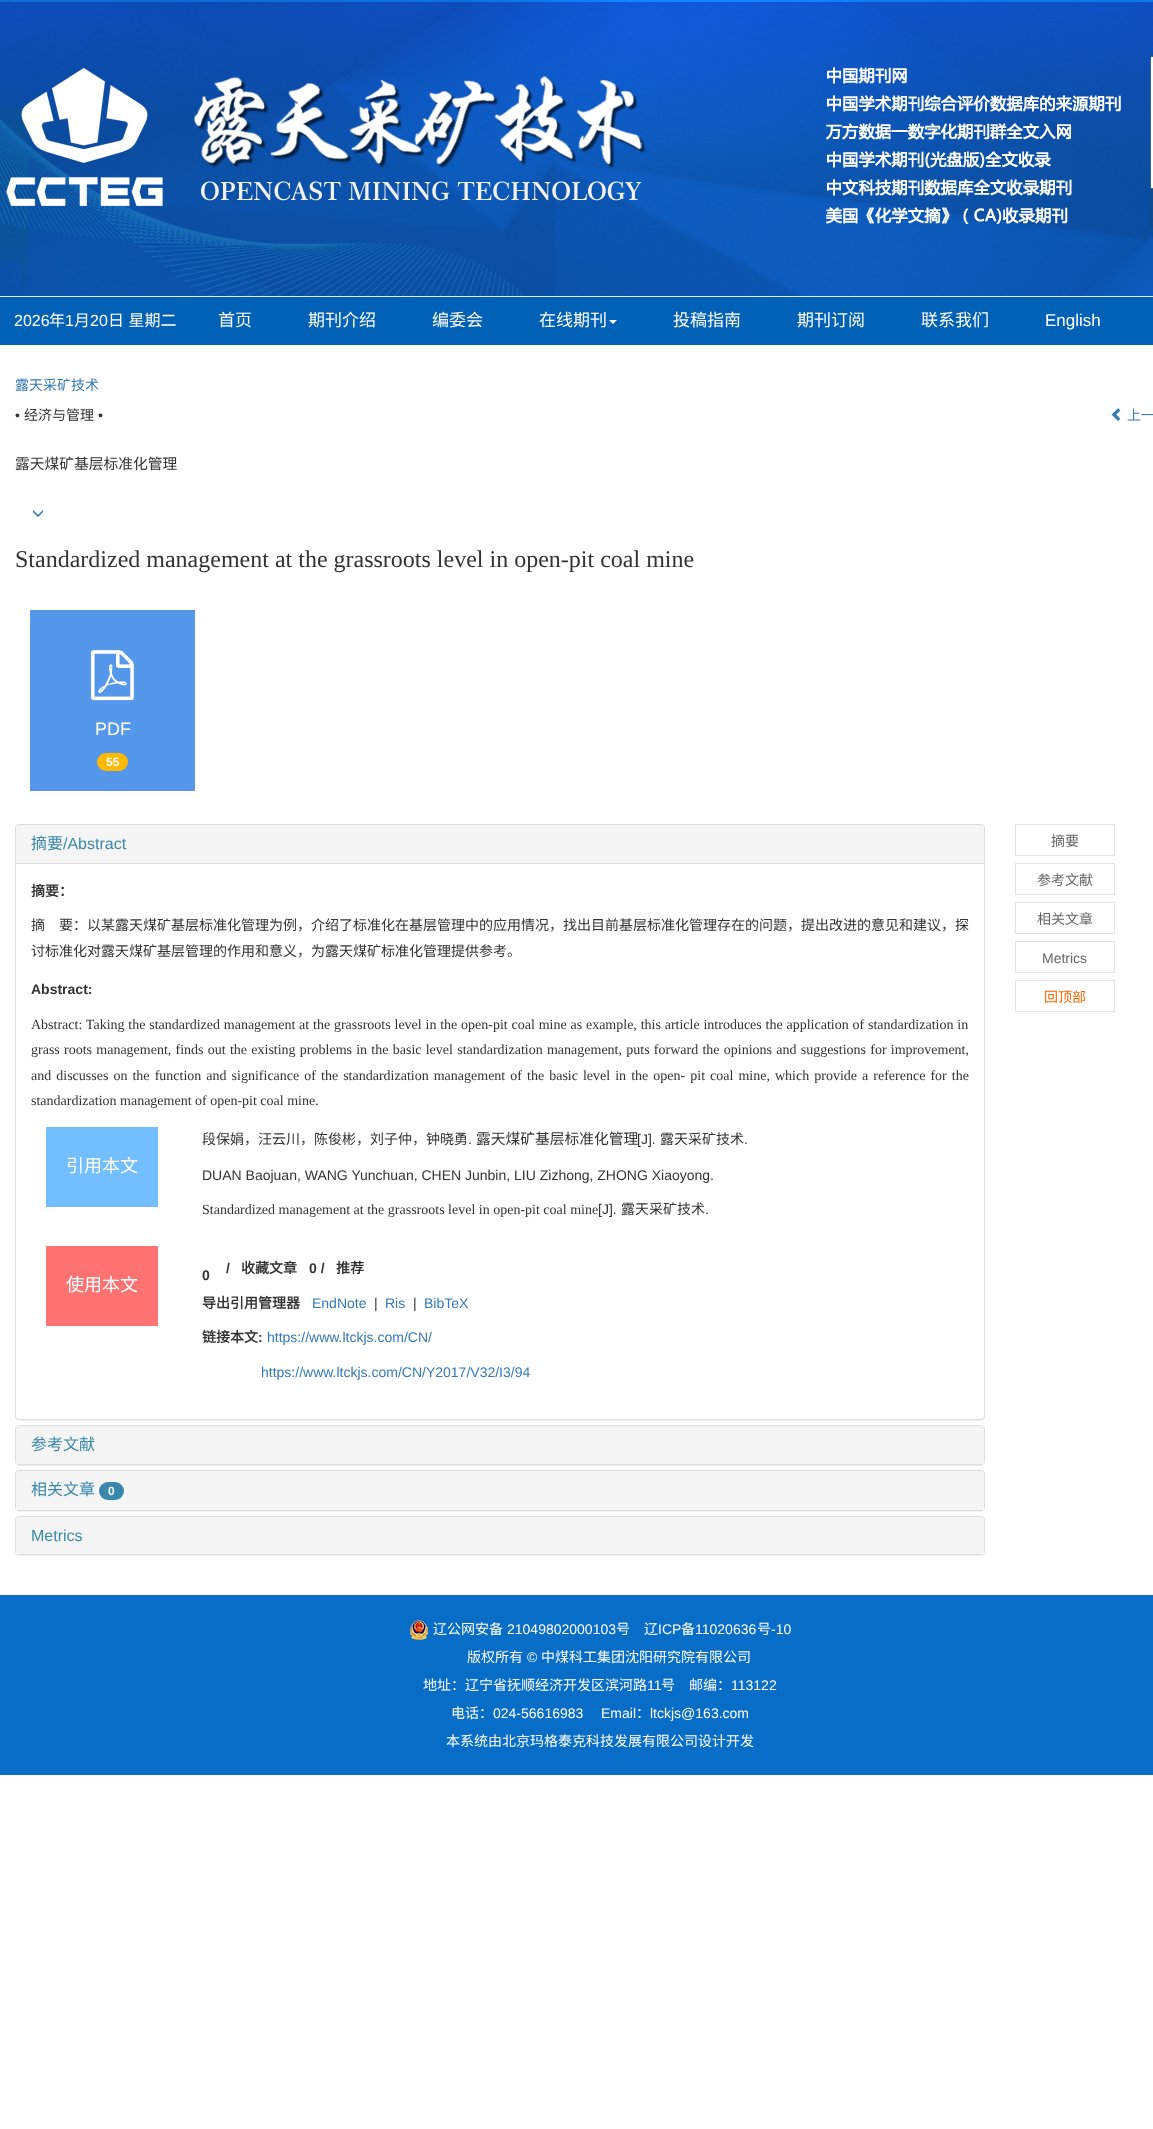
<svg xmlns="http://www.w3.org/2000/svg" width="1153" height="2129">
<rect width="100%" height="100%" fill="#fff"/>
<image x="0" y="0" width="1153" height="296" href="media/1.png"/>
<image x="6" y="68" width="640" height="138" href="media/2.png"/>
<image x="826" y="67" width="295" height="157" href="media/3.png"/>
<image x="1150" y="56" width="3" height="171" href="media/4.png"/>
<rect y="297" width="1153" height="48" fill="#0061b7"/>
<rect y="296" width="1153" height="1" fill="#e9ebe9"/>
<text x="14" y="326" style="font-family:Liberation Sans;font-size:16px;fill:#fff">2026</text>
<text x="49" y="326" style="font-family:Noto Sans CJK SC;font-size:16px;fill:#fff">年</text>
<text x="65" y="326" style="font-family:Liberation Sans;font-size:16px;fill:#fff">1</text>
<text x="74" y="326" style="font-family:Noto Sans CJK SC;font-size:16px;fill:#fff">月</text>
<text x="90" y="326" style="font-family:Liberation Sans;font-size:16px;fill:#fff">20</text>
<text x="108" y="326" word-spacing="1" style="font-family:Noto Sans CJK SC;font-size:16px;fill:#fff">日 星期二</text>
<text x="218" y="326" style="font-family:Noto Sans CJK SC;font-size:17px;fill:#fff">首页</text>
<text x="308" y="326" style="font-family:Noto Sans CJK SC;font-size:17px;fill:#fff">期刊介绍</text>
<text x="432" y="326" style="font-family:Noto Sans CJK SC;font-size:17px;fill:#fff">编委会</text>
<text x="539" y="326" style="font-family:Noto Sans CJK SC;font-size:17px;fill:#fff">在线期刊</text>
<path d="M609 320h8l-4 4z" fill="#fff"/>
<text x="673" y="326" style="font-family:Noto Sans CJK SC;font-size:17px;fill:#fff">投稿指南</text>
<text x="797" y="326" style="font-family:Noto Sans CJK SC;font-size:17px;fill:#fff">期刊订阅</text>
<text x="921" y="326" style="font-family:Noto Sans CJK SC;font-size:17px;fill:#fff">联系我们</text>
<text x="1045" y="326" style="font-family:Liberation Sans;font-size:17px;fill:#fff">English</text>
<text x="15" y="390" style="font-family:Noto Sans CJK SC;font-size:14px;fill:#337ab7">露天采矿技术</text>
<text x="15" y="420" style="font-family:Liberation Sans;font-size:14px;fill:#333">•</text>
<text x="24" y="420" style="font-family:Noto Sans CJK SC;font-size:14px;fill:#333">经济与管理</text>
<text x="98" y="420" style="font-family:Liberation Sans;font-size:14px;fill:#333">•</text>
<image x="1111" y="408" width="10" height="13" href="media/5.png"/>
<text x="1127" y="420" style="font-family:Noto Sans CJK SC;font-size:14px;fill:#337ab7">上一</text>
<text x="15" y="469" style="font-family:Noto Sans CJK SC;font-size:14.75px;fill:#333">露天煤矿基层标准化管理</text>
<image x="33" y="510" width="10" height="7" href="media/6.png"/>
<text x="15" y="567" style="font-family:Liberation Serif;font-size:24px;fill:#333">Standardized management at the grassroots level in open-pit coal mine</text>
<rect x="30" y="610" width="165" height="181" fill="#5497eb"/>
<image x="91" y="650" width="43" height="51" href="media/7.png"/>
<text x="95" y="735" style="font-family:Liberation Sans;font-size:18px;fill:#fff">PDF</text>
<rect x="97" y="753" width="31" height="18" rx="9" fill="#ffb900"/>
<text x="106" y="766" style="font-family:Liberation Sans;font-size:12px;font-weight:bold;fill:#fff">55</text>
<rect x="15" y="825" width="970" height="596" rx="4" fill="#0000000d" filter="blur(0.5px)"/>
<rect x="15.5" y="824.5" width="969" height="595" rx="3.5" fill="#fff" stroke="#ddd"/>
<path d="M19 825h962c1.5 0 3 1.5 3 3v35h-968v-35c0-1.5 1.5-3 3-3z" fill="#f5f5f5"/>
<text x="31" y="849" style="font-family:Noto Sans CJK SC;font-size:16px;fill:#3a87ad">摘要</text>
<text x="63" y="849" style="font-family:Liberation Sans;font-size:16px;fill:#3a87ad">/Abstract</text>
<rect x="16" y="863" width="968" height="1" fill="#ddd"/>
<text x="31" y="896" style="font-family:Noto Sans CJK SC;font-size:14px;font-weight:bold;fill:#333">摘要：</text>
<text x="31" y="930" style="font-family:Noto Sans CJK SC;font-size:14px;fill:#333">摘　要：以某露天煤矿基层标准化管理为例，介绍了标准化在基层管理中的应用情况，找出目前基层标准化管理存在的问题，提出改进的意见和建议，探</text>
<text x="31" y="956" style="font-family:Noto Sans CJK SC;font-size:14px;fill:#333">讨标准化对露天煤矿基层管理的作用和意义，为露天煤矿标准化管理提供参考。</text>
<text x="31" y="994" style="font-family:Liberation Sans;font-size:14px;font-weight:bold;fill:#333">Abstract:</text>
<text x="31" y="1029" word-spacing="0.3" style="font-family:Liberation Serif;font-size:14px;fill:#333">Abstract: Taking the standardized management at the grassroots level in the open-pit coal mine as example, this article introduces the application of standardization in</text>
<text x="31" y="1054" word-spacing="0.75" style="font-family:Liberation Serif;font-size:14px;fill:#333">grass roots management, finds out the existing problems in the basic level standardization management, puts forward the opinions and suggestions for improvement,</text>
<text x="31" y="1080" word-spacing="1.55" style="font-family:Liberation Serif;font-size:14px;fill:#333">and discusses on the function and significance of the standardization management of the basic level in the open- pit coal mine, which provide a reference for the</text>
<text x="31" y="1105" style="font-family:Liberation Serif;font-size:14px;fill:#333">standardization management of open-pit coal mine.</text>
<rect x="46" y="1127" width="112" height="80" fill="#72beff"/>
<text x="66" y="1172" style="font-family:Noto Sans CJK SC;font-size:18px;fill:#fff">引用本文</text>
<text x="202" y="1144" style="font-family:Noto Sans CJK SC;font-size:14px;fill:#333">段保娟，汪云川，陈俊彬，刘子仲，钟晓勇</text>
<text x="468" y="1144" style="font-family:Liberation Sans;font-size:14px;fill:#333">.</text>
<text x="476" y="1144" style="font-family:Noto Sans CJK SC;font-size:14.75px;fill:#333">露天煤矿基层标准化管理</text>
<text x="637" y="1144" style="font-family:Liberation Sans;font-size:14px;fill:#333">[J].</text>
<text x="660" y="1144" style="font-family:Noto Sans CJK SC;font-size:14px;fill:#333">露天采矿技术</text>
<text x="744" y="1144" style="font-family:Liberation Sans;font-size:14px;fill:#333">.</text>
<text x="202" y="1180" style="font-family:Liberation Sans;font-size:14px;fill:#333">DUAN Baojuan, WANG Yunchuan, CHEN Junbin, LIU Zizhong, ZHONG Xiaoyong.</text>
<text x="202" y="1214" style="font-family:Liberation Serif;font-size:14px;fill:#333">Standardized management at the grassroots level in open-pit coal mine</text>
<text x="598" y="1214" style="font-family:Liberation Sans;font-size:14px;fill:#333">[J].</text>
<text x="621" y="1214" style="font-family:Noto Sans CJK SC;font-size:14px;fill:#333">露天采矿技术</text>
<text x="705" y="1214" style="font-family:Liberation Sans;font-size:14px;fill:#333">.</text>
<rect x="46" y="1246" width="112" height="80" fill="#ff7272"/>
<text x="66" y="1291" style="font-family:Noto Sans CJK SC;font-size:18px;fill:#fff">使用本文</text>
<text x="226" y="1273" style="font-family:Liberation Sans;font-size:14px;font-weight:bold;fill:#333">/</text>
<text x="241" y="1273" style="font-family:Noto Sans CJK SC;font-size:14px;font-weight:bold;fill:#333">收藏文章</text>
<text x="309" y="1273" style="font-family:Liberation Sans;font-size:14px;font-weight:bold;fill:#333">0 /</text>
<text x="336" y="1273" style="font-family:Noto Sans CJK SC;font-size:14px;font-weight:bold;fill:#333">推荐</text>
<text x="202" y="1280" style="font-family:Liberation Sans;font-size:14px;font-weight:bold;fill:#333">0</text>
<text x="202" y="1308" style="font-family:Noto Sans CJK SC;font-size:14px;font-weight:bold;fill:#333">导出引用管理器</text>
<text x="312" y="1308" style="font-family:Liberation Sans;font-size:14px;fill:#337ab7">EndNote</text>
<text x="374" y="1308" style="font-family:Liberation Sans;font-size:14px;fill:#333">|</text>
<text x="385" y="1308" style="font-family:Liberation Sans;font-size:14px;fill:#337ab7">Ris</text>
<text x="413" y="1308" style="font-family:Liberation Sans;font-size:14px;fill:#333">|</text>
<text x="424" y="1308" style="font-family:Liberation Sans;font-size:14px;fill:#337ab7">BibTeX</text>
<text x="202" y="1342" style="font-family:Noto Sans CJK SC;font-size:14px;font-weight:bold;fill:#333">链接本文</text>
<text x="258" y="1342" style="font-family:Liberation Sans;font-size:14px;font-weight:bold;fill:#333">:</text>
<text x="267" y="1342" style="font-family:Liberation Sans;font-size:14px;fill:#337ab7">https://www.ltckjs.com/CN/</text>
<text x="261" y="1377" style="font-family:Liberation Sans;font-size:14px;fill:#337ab7">https://www.ltckjs.com/CN/Y2017/V32/I3/94</text>
<rect x="15" y="1426" width="970" height="40" rx="4" fill="#0000000d" filter="blur(0.5px)"/>
<rect x="15.5" y="1425.5" width="969" height="39" rx="3.5" fill="none" stroke="#ddd"/>
<path d="M19 1426h962c1.5 0 3 1.5 3 3v35h-968v-35c0-1.5 1.5-3 3-3z" fill="#f5f5f5"/>
<text x="31" y="1450" style="font-family:Noto Sans CJK SC;font-size:16px;fill:#3a87ad">参考文献</text>
<rect x="15" y="1471" width="970" height="41" rx="4" fill="#0000000d" filter="blur(0.5px)"/>
<rect x="15.5" y="1470.5" width="969" height="40" rx="3.5" fill="none" stroke="#ddd"/>
<path d="M19 1471h962c1.5 0 3 1.5 3 3v36h-968v-36c0-1.5 1.5-3 3-3z" fill="#f5f5f5"/>
<text x="31" y="1495" style="font-family:Noto Sans CJK SC;font-size:16px;fill:#3a87ad">相关文章</text>
<rect x="99" y="1482" width="25" height="18" rx="9" fill="#3a87ad"/>
<text x="108" y="1495" style="font-family:Liberation Sans;font-size:12px;font-weight:bold;fill:#f5f5f5">0</text>
<rect x="15" y="1517" width="970" height="39" rx="4" fill="#0000000d" filter="blur(0.5px)"/>
<rect x="15.5" y="1516.5" width="969" height="38" rx="3.5" fill="none" stroke="#ddd"/>
<path d="M19 1517h962c1.5 0 3 1.5 3 3v34h-968v-34c0-1.5 1.5-3 3-3z" fill="#f5f5f5"/>
<text x="31" y="1541" style="font-family:Liberation Sans;font-size:16px;fill:#3a87ad">Metrics</text>
<rect x="1015.5" y="824.5" width="99" height="31" fill="none" stroke="#e3e3e3"/>
<text x="1051" y="846" style="font-family:Noto Sans CJK SC;font-size:14px;fill:#666">摘要</text>
<rect x="1015.5" y="863.5" width="99" height="31" fill="none" stroke="#e3e3e3"/>
<text x="1037" y="885" style="font-family:Noto Sans CJK SC;font-size:14px;fill:#666">参考文献</text>
<rect x="1015.5" y="902.5" width="99" height="31" fill="none" stroke="#e3e3e3"/>
<text x="1037" y="924" style="font-family:Noto Sans CJK SC;font-size:14px;fill:#666">相关文章</text>
<rect x="1015.5" y="941.5" width="99" height="31" fill="none" stroke="#e3e3e3"/>
<text x="1042" y="963" style="font-family:Liberation Sans;font-size:14px;fill:#666">Metrics</text>
<rect x="1015.5" y="980.5" width="99" height="31" fill="none" stroke="#e3e3e3"/>
<text x="1044" y="1002" style="font-family:Noto Sans CJK SC;font-size:14px;fill:#f60">回顶部</text>
<rect y="1595" width="1153" height="180" fill="#076dc7"/>
<image x="410" y="1620" width="18" height="20" href="media/8.png"/>
<text x="433" y="1634" style="font-family:Noto Sans CJK SC;font-size:14px;fill:#fff">辽公网安备</text>
<text x="507" y="1634" style="font-family:Liberation Sans;font-size:14px;fill:#fff">21049802000103</text>
<text x="616" y="1634" style="font-family:Noto Sans CJK SC;font-size:14px;fill:#fff">号</text>
<text x="644" y="1634" style="font-family:Noto Sans CJK SC;font-size:14px;fill:#fff">辽</text>
<text x="658" y="1634" style="font-family:Liberation Sans;font-size:14px;fill:#fff">ICP</text>
<text x="681" y="1634" style="font-family:Noto Sans CJK SC;font-size:14px;fill:#fff">备</text>
<text x="695" y="1634" style="font-family:Liberation Sans;font-size:14px;fill:#fff">11020636</text>
<text x="757" y="1634" style="font-family:Noto Sans CJK SC;font-size:14px;fill:#fff">号</text>
<text x="771" y="1634" style="font-family:Liberation Sans;font-size:14px;fill:#fff">-10</text>
<text x="467" y="1662" style="font-family:Noto Sans CJK SC;font-size:14px;fill:#fff">版权所有</text>
<text x="527" y="1662" style="font-family:Liberation Sans;font-size:14px;fill:#fff">©</text>
<text x="541" y="1662" style="font-family:Noto Sans CJK SC;font-size:14px;fill:#fff">中煤科工集团沈阳研究院有限公司</text>
<text x="423" y="1690" style="font-family:Noto Sans CJK SC;font-size:14px;fill:#fff">地址：辽宁省抚顺经济开发区滨河路</text>
<text x="647" y="1690" style="font-family:Liberation Sans;font-size:14px;fill:#fff">11</text>
<text x="661" y="1690" style="font-family:Noto Sans CJK SC;font-size:14px;fill:#fff">号　邮编：</text>
<text x="731" y="1690" style="font-family:Liberation Sans;font-size:14px;fill:#fff">113122</text>
<text x="451" y="1718" style="font-family:Noto Sans CJK SC;font-size:14px;fill:#fff">电话：</text>
<text x="493" y="1718" style="font-family:Liberation Sans;font-size:14px;fill:#fff">024-56616983</text>
<text x="601" y="1718" style="font-family:Liberation Sans;font-size:14px;fill:#fff">Email</text>
<text x="636" y="1718" style="font-family:Noto Sans CJK SC;font-size:14px;fill:#fff">：</text>
<text x="650" y="1718" style="font-family:Liberation Sans;font-size:14px;fill:#fff">ltckjs@163.com</text>
<text x="446" y="1746" style="font-family:Noto Sans CJK SC;font-size:14px;fill:#fff">本系统由北京玛格泰克科技发展有限公司设计开发</text>
</svg>
